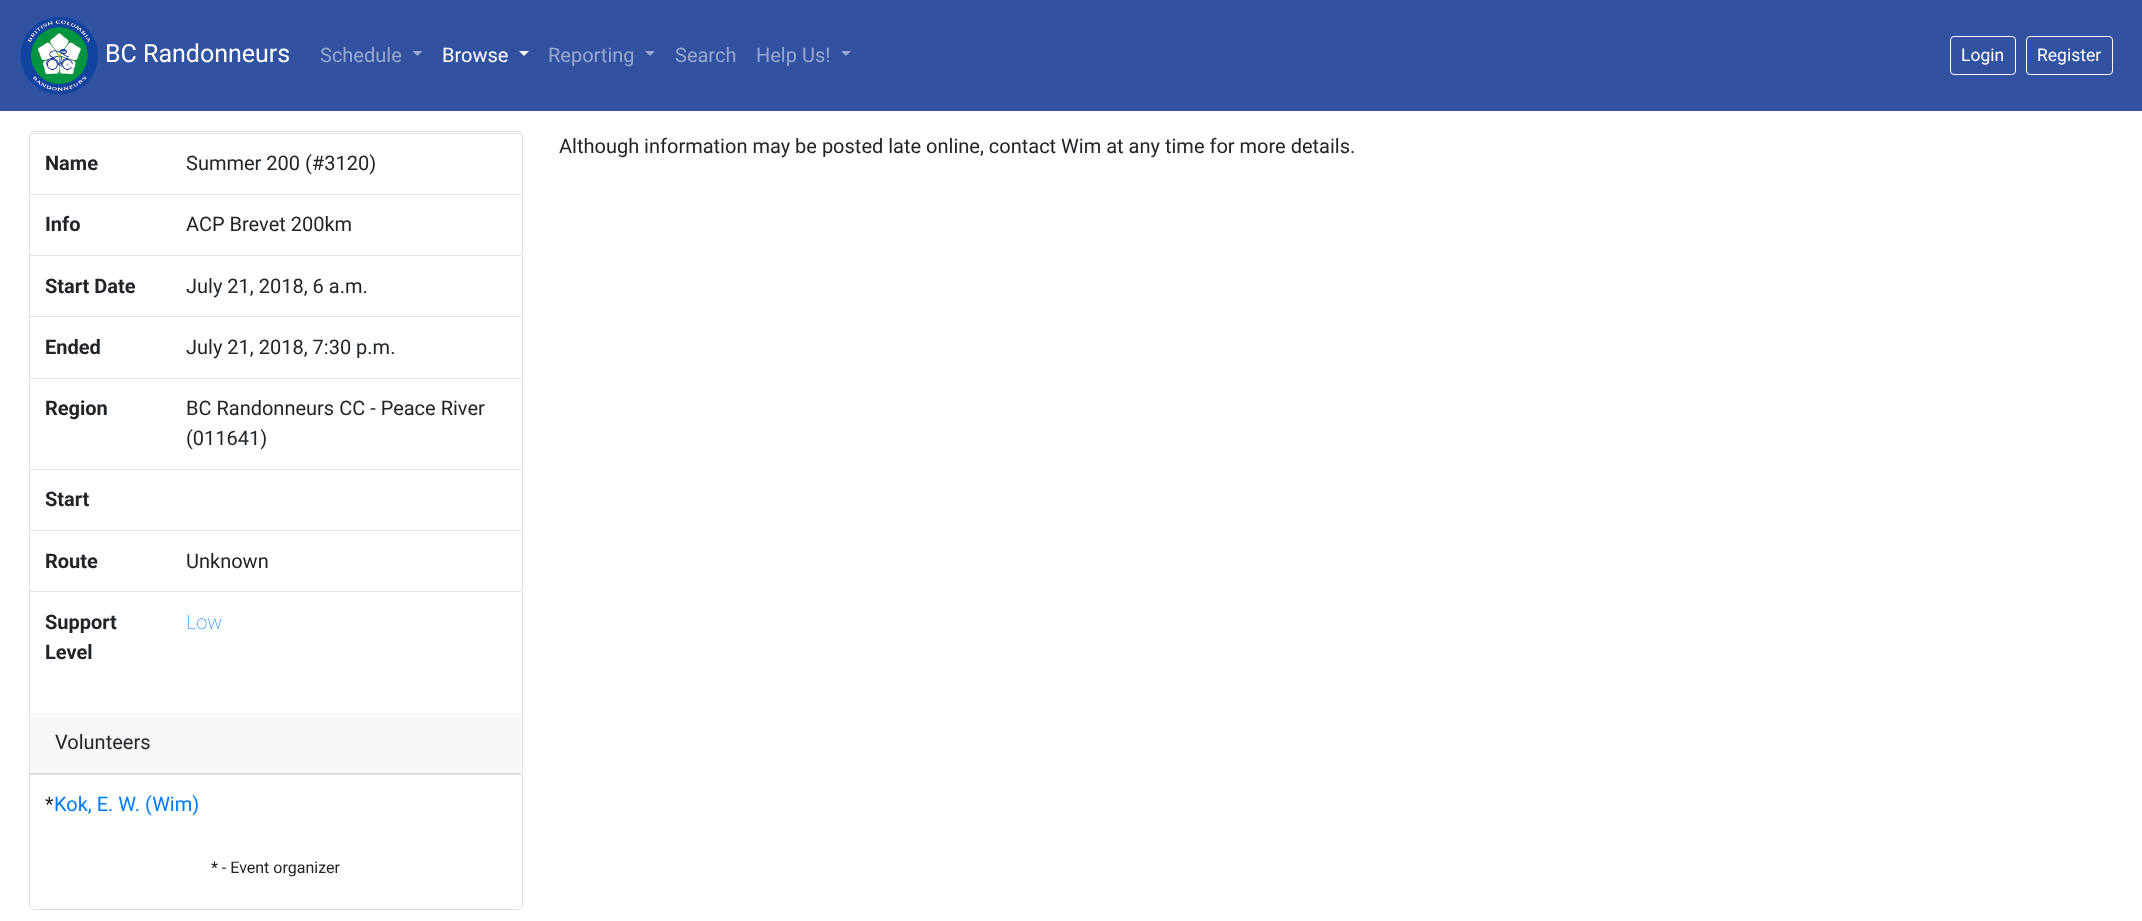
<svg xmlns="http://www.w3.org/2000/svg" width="2142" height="921">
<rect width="100%" height="100%" fill="#fff"/>
<rect width="2142" height="111" fill="#3151a1"/>
<image x="20" y="17" width="78" height="78" href="media/1.png"/>
<text x="105" y="62" style="font-family:Roboto;font-size:25px;fill:#fff">BC Randonneurs</text>
<text x="320" y="62" style="font-family:Roboto;font-size:20px;fill:#98a8d0">Schedule</text>
<path d="M412.5 51h10l-5 5z" fill="#98a8d0"/>
<text x="442" y="62" style="font-family:Roboto;font-size:20px;fill:#fff">Browse</text>
<path d="M519 51h10l-5 5z" fill="#fff"/>
<text x="548" y="62" style="font-family:Roboto;font-size:20px;fill:#98a8d0">Reporting</text>
<path d="M645 51h10l-5 5z" fill="#98a8d0"/>
<text x="675" y="62" style="font-family:Roboto;font-size:20px;fill:#98a8d0">Search</text>
<text x="756" y="62" style="font-family:Roboto;font-size:20px;fill:#98a8d0">Help Us!</text>
<path d="M841 51h10l-5 5z" fill="#98a8d0"/>
<rect x="1950.5" y="36.5" width="65" height="38" rx="3.5" fill="none" stroke="#fff"/>
<text x="1961" y="61" style="font-family:Roboto;font-size:17.5px;fill:#fff">Login</text>
<rect x="2026.5" y="36.5" width="86" height="38" rx="3.5" fill="none" stroke="#fff"/>
<text x="2037" y="61" style="font-family:Roboto;font-size:17.5px;fill:#fff">Register</text>
<text x="559" y="153" style="font-family:Roboto;font-size:20px;fill:#212529">Although information may be posted late online, contact Wim at any time for more details.</text>
<rect x="29.5" y="131.5" width="493" height="778" rx="4.5" fill="none" stroke="#dfdfdf"/>
<text x="45" y="170" style="font-family:Roboto;font-size:20px;font-weight:bold;fill:#212529">Name</text>
<rect x="30" y="133" width="491" height="1" fill="#dee2e6"/>
<text x="186" y="170" style="font-family:Roboto;font-size:20px;fill:#212529">Summer 200 (#3120)</text>
<text x="45" y="231" style="font-family:Roboto;font-size:20px;font-weight:bold;fill:#212529">Info</text>
<rect x="30" y="194" width="491" height="1" fill="#dee2e6"/>
<text x="186" y="231" style="font-family:Roboto;font-size:20px;fill:#212529">ACP Brevet 200km</text>
<text x="45" y="293" style="font-family:Roboto;font-size:20px;font-weight:bold;fill:#212529">Start Date</text>
<rect x="30" y="255" width="491" height="1" fill="#dee2e6"/>
<text x="186" y="293" style="font-family:Roboto;font-size:20px;fill:#212529">July 21, 2018, 6 a.m.</text>
<text x="45" y="354" style="font-family:Roboto;font-size:20px;font-weight:bold;fill:#212529">Ended</text>
<rect x="30" y="316" width="491" height="1" fill="#dee2e6"/>
<text x="186" y="354" style="font-family:Roboto;font-size:20px;fill:#212529">July 21, 2018, 7:30 p.m.</text>
<text x="45" y="415" style="font-family:Roboto;font-size:20px;font-weight:bold;fill:#212529">Region</text>
<rect x="30" y="378" width="491" height="1" fill="#dee2e6"/>
<text x="186" y="415" style="font-family:Roboto;font-size:20px;fill:#212529">BC Randonneurs CC - Peace River</text>
<text x="186" y="445" style="font-family:Roboto;font-size:20px;fill:#212529">(011641)</text>
<rect x="30" y="469" width="491" height="1" fill="#dee2e6"/>
<text x="45" y="506" style="font-family:Roboto;font-size:20px;font-weight:bold;fill:#212529">Start</text>
<text x="45" y="568" style="font-family:Roboto;font-size:20px;font-weight:bold;fill:#212529">Route</text>
<rect x="30" y="530" width="491" height="1" fill="#dee2e6"/>
<text x="186" y="568" style="font-family:Roboto;font-size:20px;fill:#212529">Unknown</text>
<text x="45" y="629" style="font-family:Roboto;font-size:20px;font-weight:bold;fill:#212529">Support</text>
<text x="45" y="659" style="font-family:Roboto;font-size:20px;font-weight:bold;fill:#212529">Level</text>
<rect x="30" y="591" width="491" height="1" fill="#dee2e6"/>
<text x="186" y="629" style="font-family:Roboto;font-size:20px;font-weight:100;fill:#007bff">Low</text>
<rect x="30" y="713" width="491" height="60" fill="#f7f7f7"/>
<rect x="30" y="773" width="491" height="1" fill="#d8d8d8"/>
<text x="55" y="749" style="font-family:Roboto;font-size:20px;fill:#212529">Volunteers</text>
<rect x="30" y="774" width="491" height="1" fill="#dee2e6"/>
<text x="45" y="811" style="font-family:Roboto;font-size:20px;fill:#212529">*</text>
<text x="54" y="811" style="font-family:Roboto;font-size:20px;fill:#007bff">Kok, E. W. (Wim)</text>
<text x="211" y="873" style="font-family:Roboto;font-size:16px;fill:#212529">* - Event organizer</text>
</svg>
